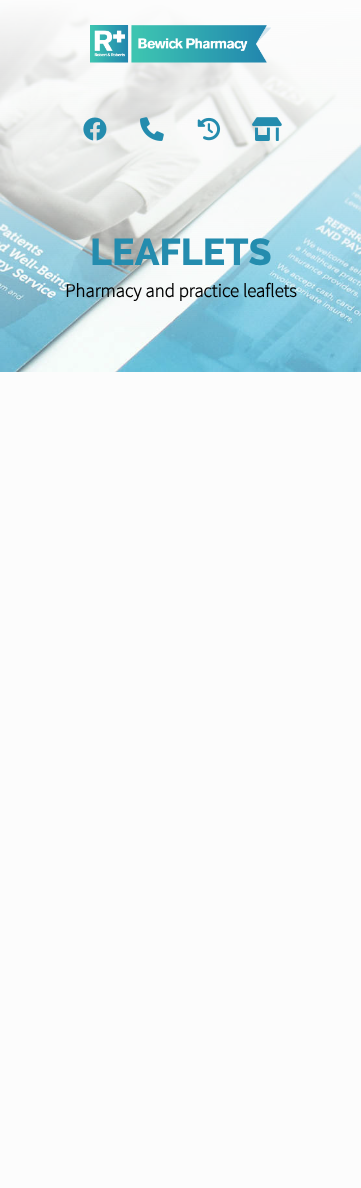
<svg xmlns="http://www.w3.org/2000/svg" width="361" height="1188">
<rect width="100%" height="100%" fill="#fcfcfc"/>
<image x="0" y="0" width="361" height="372" href="media/6.png"/>
<image x="90" y="25" width="181" height="38" href="media/1.png"/>
<image x="83" y="117" width="24" height="24" href="media/2.png"/>
<image x="140" y="117" width="24" height="24" href="media/3.png"/>
<image x="197" y="117" width="24" height="24" href="media/4.png"/>
<image x="252" y="117" width="30" height="24" href="media/5.png"/>
<text x="90" y="265" style="font-family:Raleway;font-size:37.5px;font-weight:800;fill:#248cae">LEAFLETS</text>
<text x="65" y="297" style="font-family:Source Sans Pro;font-size:18.75px;font-weight:bold;fill:#000">Pharmacy and practice leaflets</text>
</svg>
